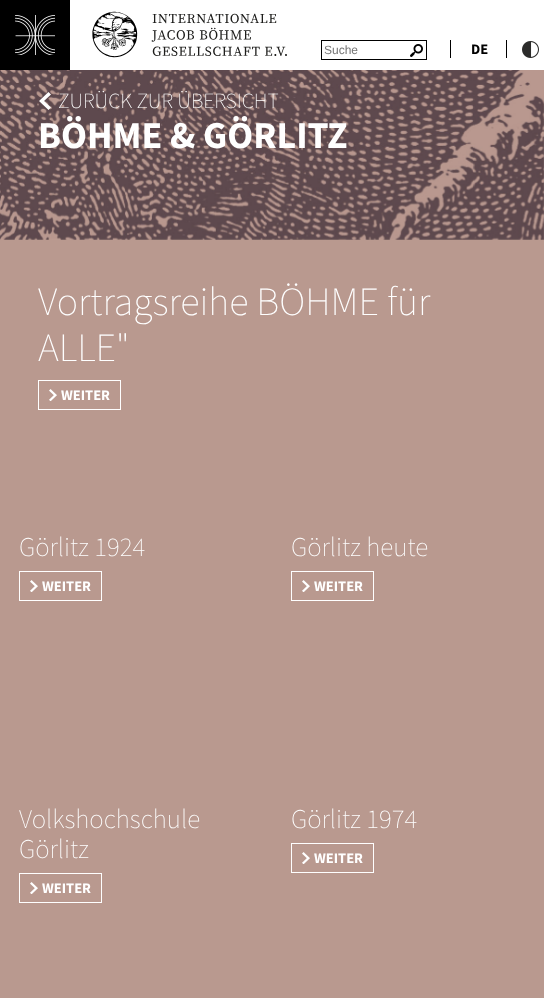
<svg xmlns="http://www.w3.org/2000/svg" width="544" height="998">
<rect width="100%" height="100%" fill="#b9998f"/>
<rect x="70" width="474" height="70" fill="#fff"/>
<rect width="70" height="70" fill="#000"/>
<image x="15" y="15" width="40" height="40" href="media/1.png"/>
<image x="92" y="11" width="195" height="47" href="media/2.png"/>
<image x="410" y="44" width="13" height="13" href="media/3.png"/>
<rect x="321.5" y="40.5" width="105" height="19" fill="none" stroke="#000"/>
<text x="324" y="54" style="font-family:Liberation Sans;font-size:12px;fill:#757575">Suche</text>
<rect x="450" y="40" width="1" height="18" fill="#000"/>
<text x="471" y="54" style="font-family:Source Sans Pro;font-size:14.5px;font-weight:bold;fill:#000">DE</text>
<rect x="506" y="40" width="1" height="18" fill="#000"/>
<image x="522" y="41" width="17" height="17" href="media/4.png"/>
<image x="0" y="70" width="544" height="170" href="media/5.png"/>
<text x="58" y="108" style="font-family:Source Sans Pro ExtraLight;font-size:21.6px;font-weight:200;fill:#fff">ZURÜCK ZUR ÜBERSICHT</text>
<path d="M48.5 92l-9.5 9l9.5 9l2.5-2.5l-7-6.5l7-6.5z" fill="#fff"/>
<text x="38" y="148" style="font-family:Source Sans Pro;font-size:38px;font-weight:bold;fill:#fff">BÖHME &amp; GÖRLITZ</text>
<text x="38" y="315" style="font-family:Source Sans Pro ExtraLight;font-size:40px;font-weight:200;fill:#fff">Vortragsreihe BÖHME für</text>
<text x="38" y="361" style="font-family:Source Sans Pro ExtraLight;font-size:40px;font-weight:200;fill:#fff">ALLE"</text>
<image x="49" y="389" width="8" height="12" href="media/6.png"/>
<rect x="38.5" y="380.5" width="82" height="29" fill="none" stroke="#fff"/>
<text x="61" y="400" style="font-family:Source Sans Pro;font-size:14.5px;font-weight:bold;fill:#fff">WEITER</text>
<text x="19" y="556" style="font-family:Source Sans Pro ExtraLight;font-size:27px;font-weight:200;fill:#fff">Görlitz 1924</text>
<image x="30" y="580" width="8" height="12" href="media/6.png"/>
<rect x="19.5" y="571.5" width="82" height="29" fill="none" stroke="#fff"/>
<text x="42" y="591" style="font-family:Source Sans Pro;font-size:14.5px;font-weight:bold;fill:#fff">WEITER</text>
<text x="291" y="556" style="font-family:Source Sans Pro ExtraLight;font-size:27px;font-weight:200;fill:#fff">Görlitz heute</text>
<image x="302" y="580" width="8" height="12" href="media/6.png"/>
<rect x="291.5" y="571.5" width="82" height="29" fill="none" stroke="#fff"/>
<text x="314" y="591" style="font-family:Source Sans Pro;font-size:14.5px;font-weight:bold;fill:#fff">WEITER</text>
<text x="19" y="828" style="font-family:Source Sans Pro ExtraLight;font-size:27px;font-weight:200;fill:#fff">Volkshochschule</text>
<text x="19" y="858" style="font-family:Source Sans Pro ExtraLight;font-size:27px;font-weight:200;fill:#fff">Görlitz</text>
<image x="30" y="882" width="8" height="12" href="media/6.png"/>
<rect x="19.5" y="873.5" width="82" height="29" fill="none" stroke="#fff"/>
<text x="42" y="893" style="font-family:Source Sans Pro;font-size:14.5px;font-weight:bold;fill:#fff">WEITER</text>
<text x="291" y="828" style="font-family:Source Sans Pro ExtraLight;font-size:27px;font-weight:200;fill:#fff">Görlitz 1974</text>
<image x="302" y="852" width="8" height="12" href="media/6.png"/>
<rect x="291.5" y="843.5" width="82" height="29" fill="none" stroke="#fff"/>
<text x="314" y="863" style="font-family:Source Sans Pro;font-size:14.5px;font-weight:bold;fill:#fff">WEITER</text>
</svg>
